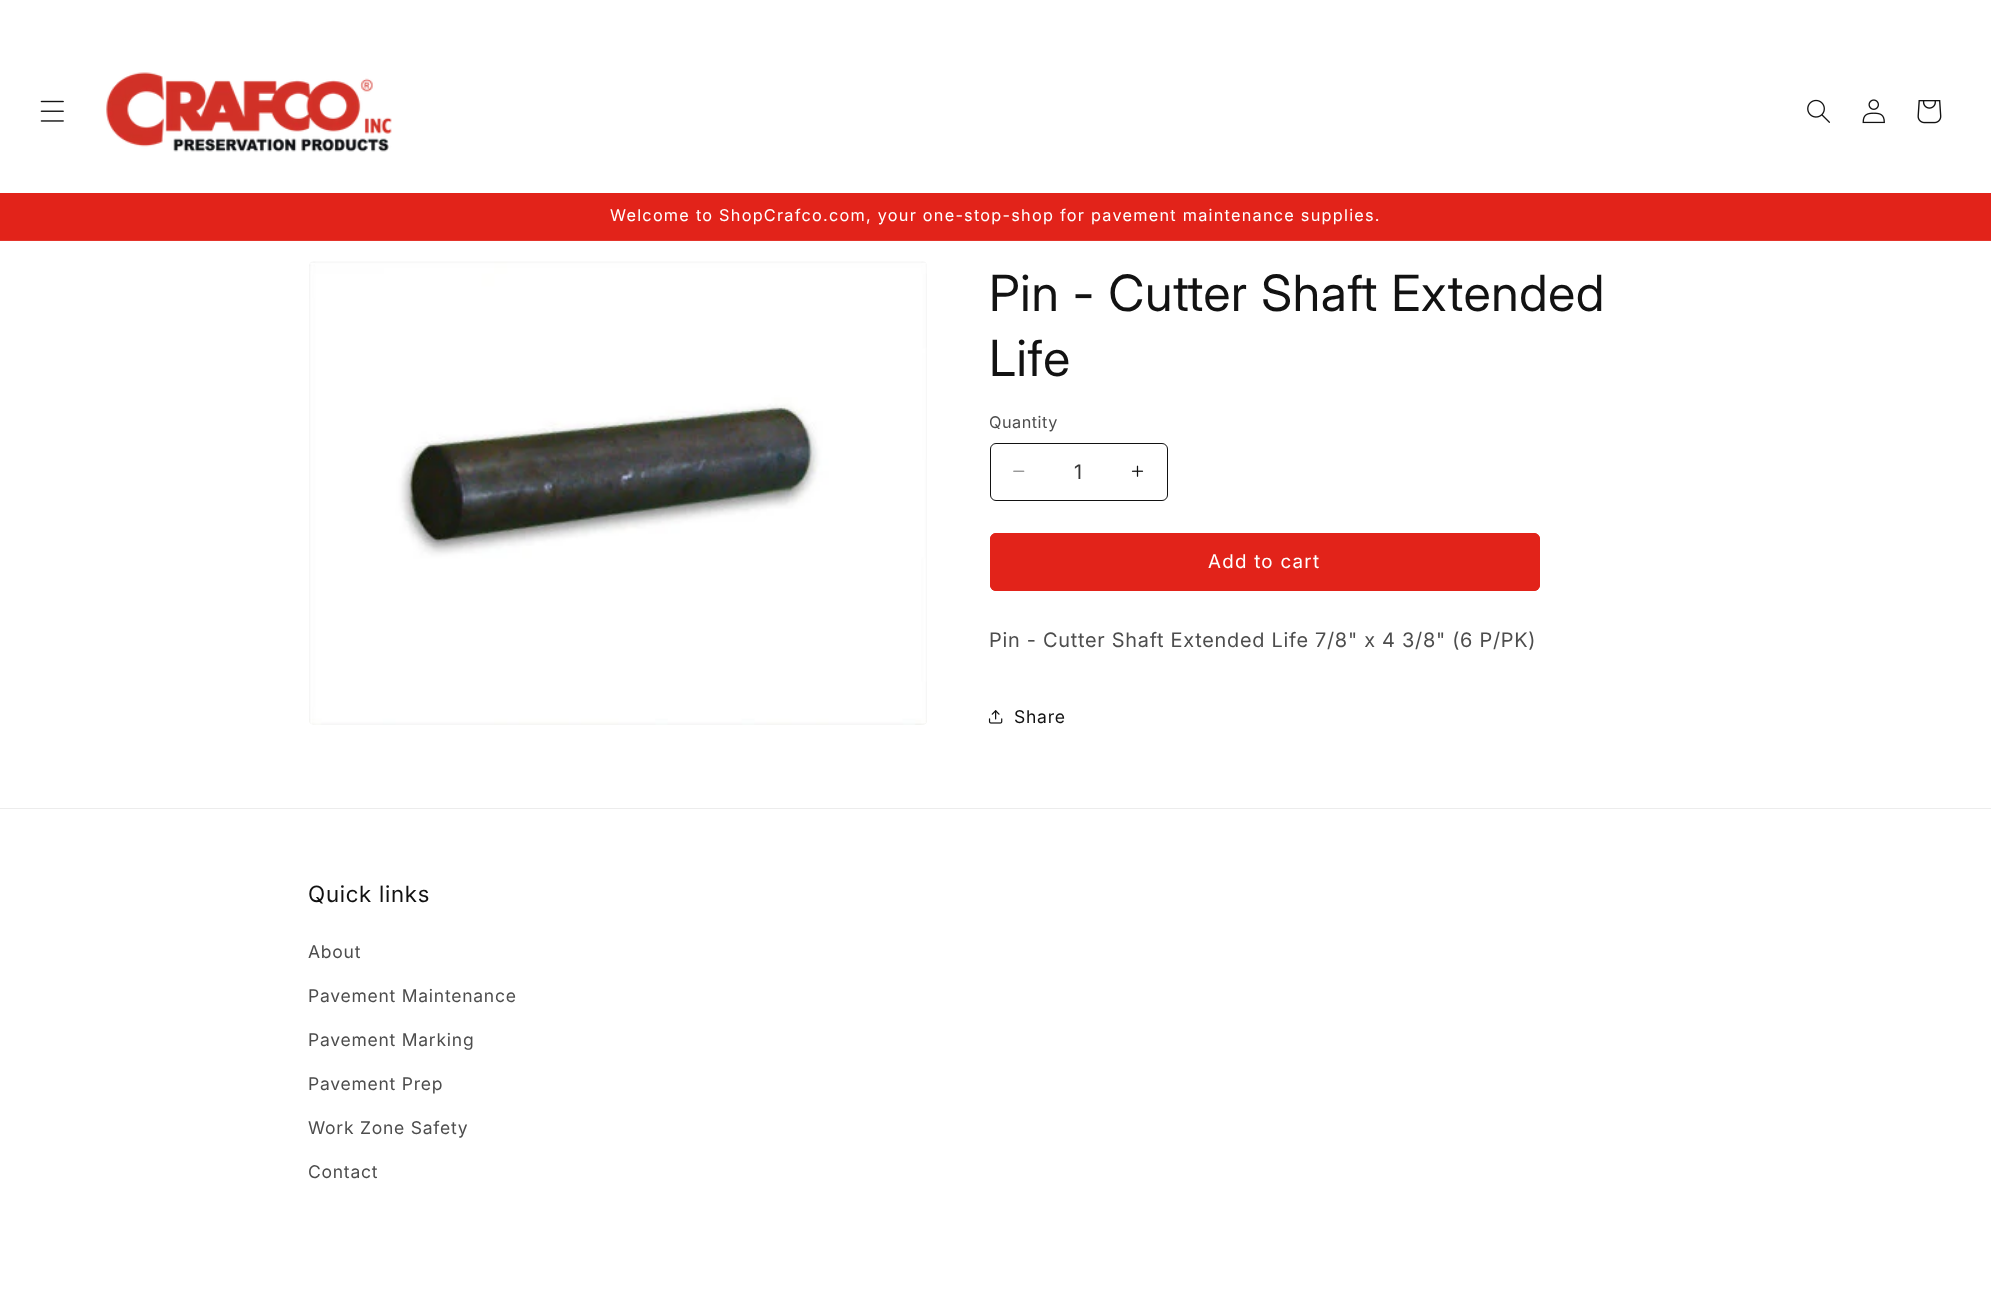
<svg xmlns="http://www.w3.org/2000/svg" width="1991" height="1310">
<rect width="100%" height="100%" fill="#fff"/>
<image x="40" y="100" width="24" height="22" href="media/1.png"/>
<image x="106" y="72" width="286" height="80" href="media/2.png"/>
<image x="1807" y="99" width="23" height="24" href="media/3.png"/>
<image x="1862" y="99" width="23" height="25" href="media/4.png"/>
<image x="1917" y="100" width="25" height="24" href="media/5.png"/>
<rect y="193" width="1991" height="47" fill="#e2231a"/>
<rect y="240" width="1991" height="1" fill="#e4352c"/>
<text x="610" y="221" style="font-family:Inter;font-size:16.25px;letter-spacing:1.25px;fill:#fff">Welcome to ShopCrafco.com, your one-stop-shop for pavement maintenance supplies.</text>
<image x="309" y="261" width="618" height="464" href="media/6.png"/>
<text x="989" y="311" style="font-family:'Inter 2';font-size:50px;letter-spacing:0.75px;fill:#121212">Pin - Cutter Shaft Extended</text>
<text x="989" y="376" style="font-family:'Inter 2';font-size:50px;letter-spacing:0.75px;fill:#121212">Life</text>
<text x="989" y="428" style="font-family:Inter;font-size:16.25px;letter-spacing:0.5px;fill:#4d4d4d">Quantity</text>
<image x="1013" y="470" width="12" height="2" href="media/7.png"/>
<image x="1131" y="465" width="13" height="12" href="media/8.png"/>
<rect x="990.5" y="443.5" width="177" height="57" rx="5.5" fill="none" stroke="#121212"/>
<text x="1074" y="479" style="font-family:'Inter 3';font-size:20px;fill:#363636">1</text>
<rect x="990" y="533" width="550" height="58" rx="6" fill="#e2231a"/>
<rect x="990.5" y="533.5" width="549" height="57" rx="5.5" fill="none" stroke="#e2231a"/>
<text x="1208" y="568" style="font-family:Inter;font-size:18.75px;letter-spacing:1.25px;fill:#fff">Add to cart</text>
<text x="989" y="647" style="font-family:'Inter 3';font-size:20px;letter-spacing:0.75px;fill:#4d4d4d">Pin - Cutter Shaft Extended Life 7/8" x 4 3/8" (6 P/PK)</text>
<image x="988" y="710" width="15" height="14" href="media/9.png"/>
<text x="1014" y="723" style="font-family:Inter;font-size:17.5px;letter-spacing:0.75px;fill:#121212">Share</text>
<rect y="808" width="1991" height="1" fill="#ececec"/>
<text x="308" y="902" style="font-family:'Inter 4';font-size:22.5px;letter-spacing:0.75px;fill:#121212">Quick links</text>
<text x="308" y="958" style="font-family:Inter;font-size:17.5px;letter-spacing:0.75px;fill:#4d4d4d">About</text>
<text x="308" y="1002" style="font-family:Inter;font-size:17.5px;letter-spacing:0.75px;fill:#4d4d4d">Pavement Maintenance</text>
<text x="308" y="1046" style="font-family:Inter;font-size:17.5px;letter-spacing:0.75px;fill:#4d4d4d">Pavement Marking</text>
<text x="308" y="1090" style="font-family:Inter;font-size:17.5px;letter-spacing:0.75px;fill:#4d4d4d">Pavement Prep</text>
<text x="308" y="1134" style="font-family:Inter;font-size:17.5px;letter-spacing:0.75px;fill:#4d4d4d">Work Zone Safety</text>
<text x="308" y="1178" style="font-family:Inter;font-size:17.5px;letter-spacing:0.75px;fill:#4d4d4d">Contact</text>
</svg>
